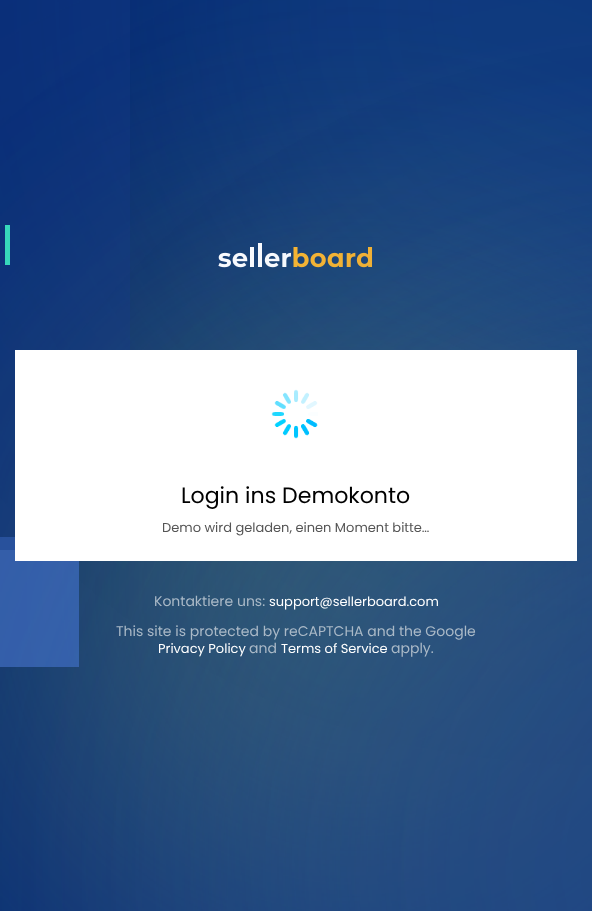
<svg xmlns="http://www.w3.org/2000/svg" width="592" height="911">
<rect width="100%" height="100%" fill="#032670"/>
<rect x="35" y="271" width="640" height="640" rx="320" fill="#3d6360" filter="blur(200px)"/>
<rect x="130" y="-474" width="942" height="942" rx="471" fill="#377bba33" filter="blur(150px)"/>
<image x="218" y="243" width="155" height="25" href="media/1.png"/>
<rect y="537" width="79" height="130" fill="#3b66b6cc"/>
<rect x="257" y="367" width="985" height="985" rx="492.5" fill="#0d2d5f99" filter="blur(150px)"/>
<rect width="130" height="550" fill="#143a8766"/>
<rect x="79" y="287" width="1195" height="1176" rx="588" fill="#6aa4ff33" filter="blur(200px)"/>
<rect x="5" y="225" width="5" height="40" fill="#37d8bb"/>
<rect x="15" y="350" width="562" height="211" fill="#fff"/>
<image x="271" y="389" width="47" height="50" href="media/2.png"/>
<text x="181" y="503" style="font-family:Poppins;font-size:22.1px;fill:#000">Login ins Demokonto</text>
<text x="162" y="532" style="font-family:Poppins;font-size:13px;fill:#555">Demo wird geladen, einen Moment bitte…</text>
<text x="154" y="606" style="font-family:Poppins;font-size:14px;fill:#aab9c7">Kontaktiere uns:</text>
<text x="269" y="606" style="font-family:Poppins;font-size:13px;fill:#fff">support@sellerboard.com</text>
<text x="116" y="636" style="font-family:Poppins;font-size:14px;fill:#aab9c7">This site is protected by reCAPTCHA and the Google</text>
<text x="158" y="653" style="font-family:Poppins;font-size:13px;fill:#fff">Privacy Policy</text>
<text x="249" y="653" style="font-family:Poppins;font-size:14px;fill:#aab9c7">and</text>
<text x="281" y="653" style="font-family:Poppins;font-size:13px;fill:#fff">Terms of Service</text>
<text x="391" y="653" style="font-family:Poppins;font-size:14px;fill:#aab9c7">apply.</text>
</svg>
